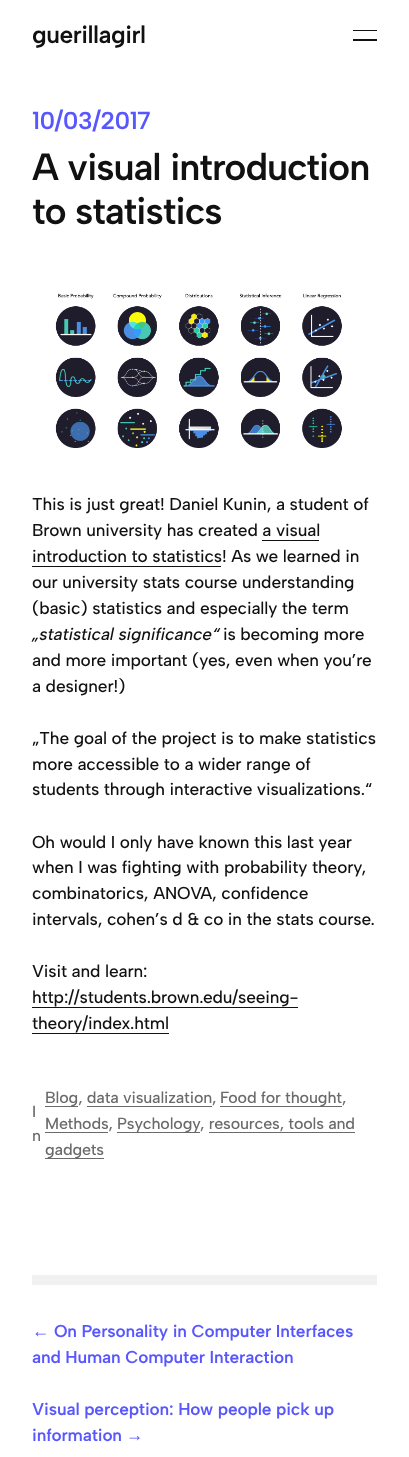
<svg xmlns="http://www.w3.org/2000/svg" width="409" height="1457">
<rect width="100%" height="100%" fill="#fff"/>
<text x="32" y="43" style="font-family:Albert Sans;font-size:24.5px;font-weight:600;letter-spacing:-0.5px;fill:#111">guerillagirl</text>
<rect x="353" y="30" width="24" height="1" fill="#111"/>
<rect x="353" y="39" width="24" height="2" fill="#111"/>
<text x="32" y="129" style="font-family:Albert Sans;font-size:24.5px;font-weight:600;letter-spacing:-0.5px;fill:#5857ff">10/03/2017</text>
<text x="32" y="180" style="font-family:Albert Sans;font-size:37.75px;font-weight:600;letter-spacing:-1.1px;fill:#111">A visual introduction</text>
<text x="32" y="224" style="font-family:Albert Sans;font-size:37.75px;font-weight:600;letter-spacing:-1.1px;fill:#111">to statistics</text>
<image x="55" y="293" width="287" height="155" href="media/1.png"/>
<text x="32" y="510" style="font-family:Albert Sans;font-size:17.25px;font-weight:500;letter-spacing:-0.15px;fill:#111">This is just great! Daniel Kunin, a student of</text>
<text x="32" y="536" style="font-family:Albert Sans;font-size:17.25px;font-weight:500;letter-spacing:-0.15px;fill:#111">Brown university has created a visual</text>
<text x="32" y="562" style="font-family:Albert Sans;font-size:17.25px;font-weight:500;letter-spacing:-0.15px;fill:#111">introduction to statistics! As we learned in</text>
<rect x="262" y="540" width="57" height="1" fill="#111"/>
<rect x="32" y="566" width="189" height="1" fill="#111"/>
<text x="32" y="588" style="font-family:Albert Sans;font-size:17.25px;font-weight:500;letter-spacing:-0.15px;fill:#111">our university stats course understanding</text>
<text x="32" y="614" style="font-family:Albert Sans;font-size:17.25px;font-weight:500;letter-spacing:-0.15px;fill:#111">(basic) statistics and especially the term</text>
<text x="32" y="640" style="font-family:Albert Sans;font-size:17.25px;font-weight:500;font-style:italic;letter-spacing:-0.15px;fill:#111">„statistical significance“</text>
<text x="223" y="640" style="font-family:Albert Sans;font-size:17.25px;font-weight:500;letter-spacing:-0.15px;fill:#111">is becoming more</text>
<text x="32" y="666" style="font-family:Albert Sans;font-size:17.25px;font-weight:500;letter-spacing:-0.15px;fill:#111">and more important (yes, even when you’re</text>
<text x="32" y="692" style="font-family:Albert Sans;font-size:17.25px;font-weight:500;letter-spacing:-0.15px;fill:#111">a designer!)</text>
<text x="32" y="744" style="font-family:Albert Sans;font-size:17.25px;font-weight:500;letter-spacing:-0.15px;fill:#111">„The goal of the project is to make statistics</text>
<text x="32" y="770" style="font-family:Albert Sans;font-size:17.25px;font-weight:500;letter-spacing:-0.15px;fill:#111">more accessible to a wider range of</text>
<text x="32" y="795" style="font-family:Albert Sans;font-size:17.25px;font-weight:500;letter-spacing:-0.15px;fill:#111">students through interactive visualizations.“</text>
<text x="32" y="848" style="font-family:Albert Sans;font-size:17.25px;font-weight:500;letter-spacing:-0.15px;fill:#111">Oh would I only have known this last year</text>
<text x="32" y="873" style="font-family:Albert Sans;font-size:17.25px;font-weight:500;letter-spacing:-0.15px;fill:#111">when I was fighting with probability theory,</text>
<text x="32" y="899" style="font-family:Albert Sans;font-size:17.25px;font-weight:500;letter-spacing:-0.15px;fill:#111">combinatorics, ANOVA, confidence</text>
<text x="32" y="925" style="font-family:Albert Sans;font-size:17.25px;font-weight:500;letter-spacing:-0.15px;fill:#111">intervals, cohen’s d &amp; co in the stats course.</text>
<text x="32" y="977" style="font-family:Albert Sans;font-size:17.25px;font-weight:500;letter-spacing:-0.15px;fill:#111">Visit and learn:</text>
<text x="32" y="1003" style="font-family:Albert Sans;font-size:17.25px;font-weight:500;letter-spacing:-0.15px;fill:#111">http://students.brown.edu/seeing-</text>
<rect x="32" y="1007" width="266" height="1" fill="#111"/>
<text x="32" y="1029" style="font-family:Albert Sans;font-size:17.25px;font-weight:500;letter-spacing:-0.15px;fill:#111">theory/index.html</text>
<rect x="32" y="1033" width="137" height="1" fill="#111"/>
<text x="32" y="1117" style="font-family:Albert Sans;font-size:16.1px;font-weight:500;letter-spacing:-0.15px;fill:#6b6a6a">I</text>
<text x="32" y="1141" style="font-family:Albert Sans;font-size:16.1px;font-weight:500;letter-spacing:-0.15px;fill:#6b6a6a">n</text>
<rect x="45" y="1106" width="33" height="1" fill="#6b6a6a"/>
<text x="45" y="1103" style="font-family:Albert Sans;font-size:16.1px;font-weight:500;letter-spacing:-0.15px;fill:#6b6a6a">Blog, data visualization,</text>
<rect x="220" y="1106" width="122" height="1" fill="#6b6a6a"/>
<text x="220" y="1103" style="font-family:Albert Sans;font-size:16.1px;font-weight:500;letter-spacing:-0.15px;fill:#6b6a6a">Food for thought,</text>
<rect x="87" y="1106" width="125" height="1" fill="#6b6a6a"/>
<text x="45" y="1129" style="font-family:Albert Sans;font-size:16.1px;font-weight:500;letter-spacing:-0.15px;fill:#6b6a6a">Methods,</text>
<rect x="45" y="1132" width="63" height="1" fill="#6b6a6a"/>
<rect x="117" y="1132" width="83" height="1" fill="#6b6a6a"/>
<text x="117" y="1129" style="font-family:Albert Sans;font-size:16.1px;font-weight:500;letter-spacing:-0.15px;fill:#6b6a6a">Psychology</text>
<text x="200" y="1129" style="font-family:Albert Sans;font-size:16.1px;font-weight:500;letter-spacing:-0.15px;fill:#6b6a6a">, resources, tools and</text>
<rect x="45" y="1158" width="59" height="1" fill="#6b6a6a"/>
<text x="45" y="1155" style="font-family:Albert Sans;font-size:16.1px;font-weight:500;letter-spacing:-0.15px;fill:#6b6a6a">gadgets</text>
<rect x="209" y="1132" width="146" height="1" fill="#6b6a6a"/>
<rect x="32" y="1275" width="345" height="10" fill="#f1f1f1"/>
<text x="32" y="1337" style="font-family:Liberation Sans;font-size:17.25px;font-weight:bold;letter-spacing:-0.15px;fill:#5857ff">←</text>
<text x="54" y="1337" style="font-family:Albert Sans;font-size:17.25px;font-weight:600;letter-spacing:-0.15px;fill:#5857ff">On Personality in Computer Interfaces</text>
<text x="32" y="1363" style="font-family:Albert Sans;font-size:17.25px;font-weight:600;letter-spacing:-0.15px;fill:#5857ff">and Human Computer Interaction</text>
<text x="32" y="1415" style="font-family:Albert Sans;font-size:17.25px;font-weight:600;letter-spacing:-0.15px;fill:#5857ff">Visual perception: How people pick up</text>
<text x="32" y="1441" style="font-family:Albert Sans;font-size:17.25px;font-weight:600;letter-spacing:-0.15px;fill:#5857ff">information</text>
<text x="126" y="1441" style="font-family:Liberation Sans;font-size:17.25px;font-weight:bold;letter-spacing:-0.15px;fill:#5857ff">→</text>
</svg>
